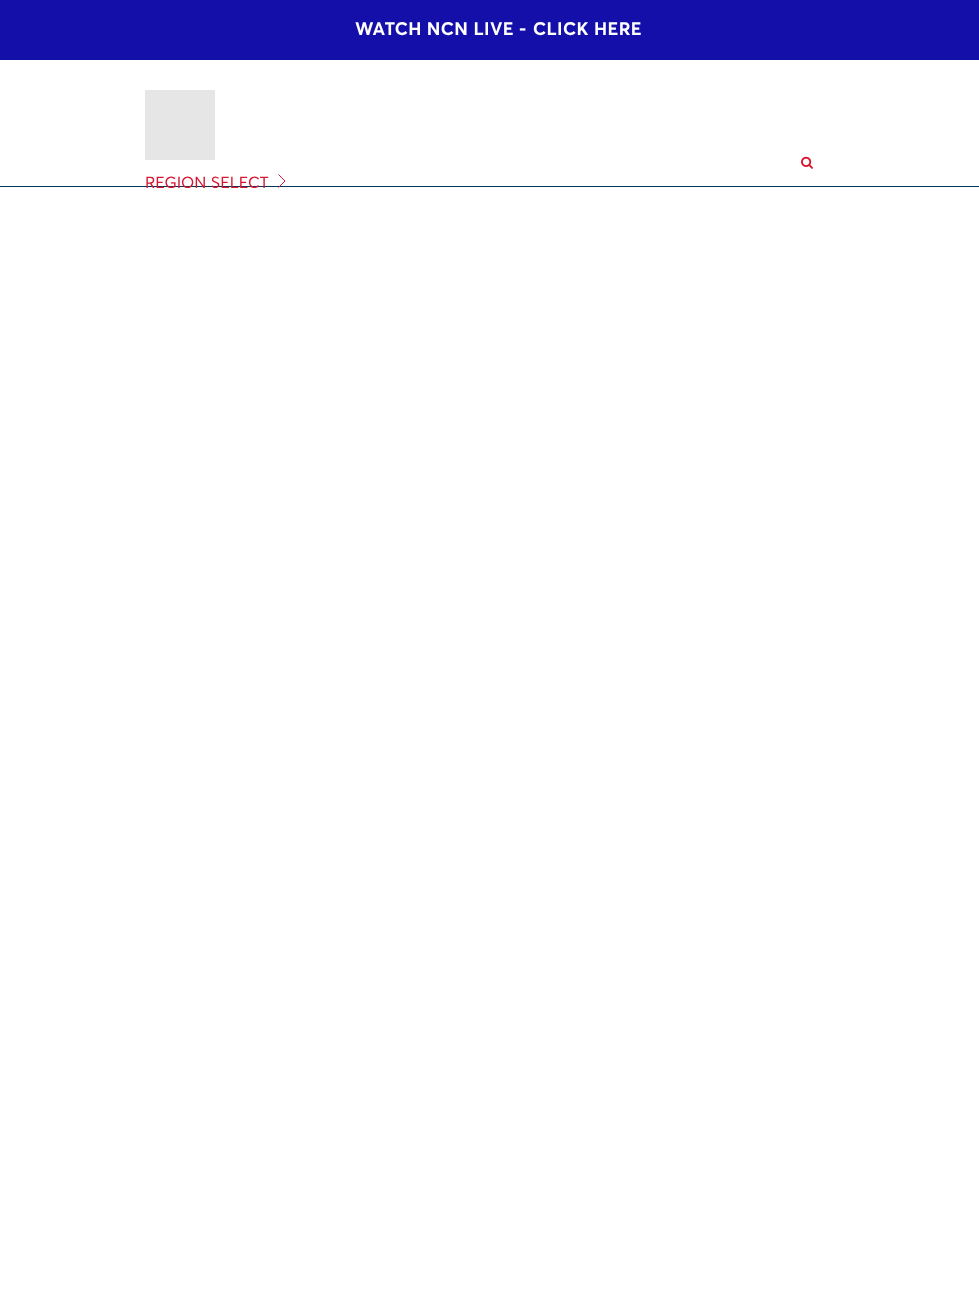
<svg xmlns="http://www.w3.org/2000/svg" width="979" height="1297">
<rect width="100%" height="100%" fill="#fff"/>
<rect width="979" height="60" fill="#140fa8"/>
<text x="355" y="35" style="font-family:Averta;font-size:18px;font-weight:bold;letter-spacing:0.4px;fill:#fff">WATCH NCN LIVE -</text>
<text x="533" y="35" style="font-family:Averta;font-size:18px;font-weight:bold;letter-spacing:0.4px;fill:#fff">CLICK HERE</text>
<rect y="186" width="979" height="1" fill="#043556"/>
<image x="801" y="156" width="12" height="13" href="media/1.png"/>
<rect x="145" y="90" width="70" height="70" fill="#e6e6e6"/>
<text x="145" y="188" style="font-family:Averta;font-size:16px;fill:#d7172f">REGION SELECT</text>
<path d="M278.5 174.5l6.5 6.5l-6.5 6.5" fill="none" stroke="#d7172f"/>
</svg>
